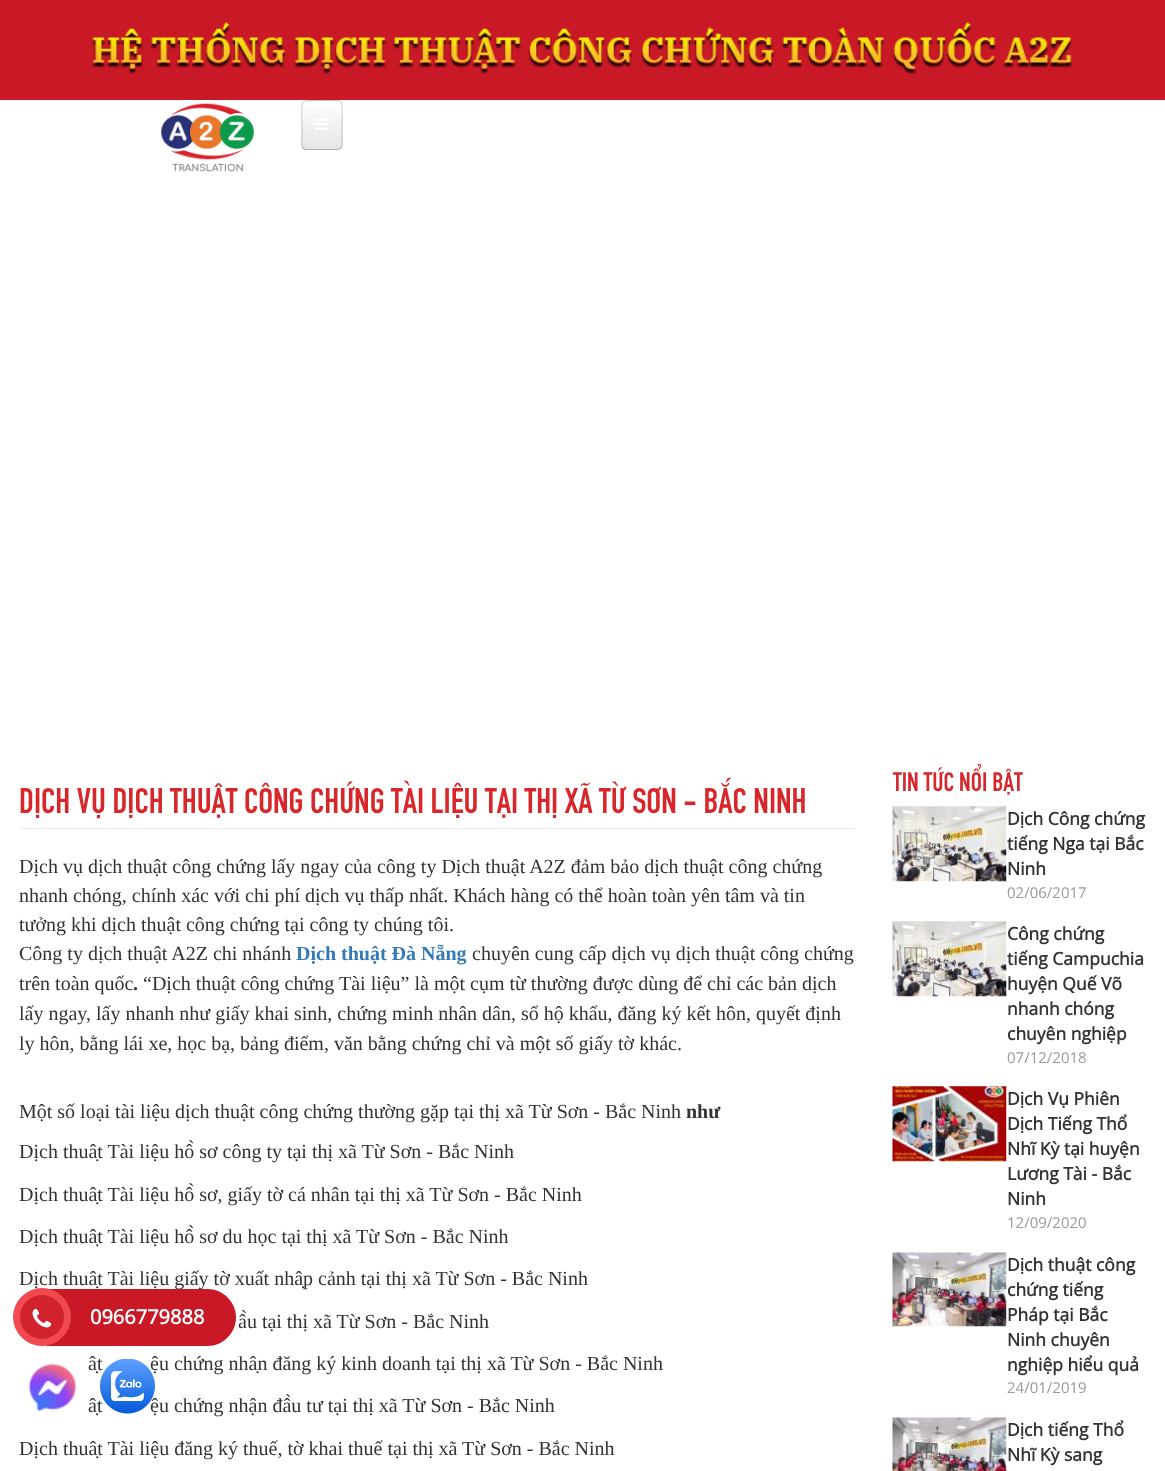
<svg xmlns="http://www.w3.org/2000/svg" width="1165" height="1471">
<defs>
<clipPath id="clip1"><rect x="301" y="100" width="42" height="50" rx="5"/></clipPath>
<linearGradient id="g1" gradientUnits="userSpaceOnUse" x1="322" y1="101" x2="322" y2="149"><stop offset="0" stop-color="#fff"/><stop offset="1" stop-color="#e6e6e6"/></linearGradient>
</defs>
<rect width="100%" height="100%" fill="#fff"/>
<rect width="1165" height="100" fill="#c91926"/>
<image x="91" y="22" width="982" height="52" href="media/1.png"/>
<image x="161" y="103" width="93" height="69" href="media/2.png"/>
<rect x="301" y="100" width="42" height="50" rx="5" fill="#e8e8e8"/>
<g clip-path="url(#clip1)">
<rect x="301" y="101" width="42" height="48" fill="url(#g1)"/>
</g>
<path d="M340.5 148c-.5 1-2 1.5-3 1.5h-31.5c-1 0-2-.5-3-1.5" fill="none" stroke="#00000040" stroke-width="1.2"/>
<path d="M303 148c-2-2-1-7.5-1-9.5v-13.5c0-27-5-24.5 20-24.5c25 0 20-2.5 20 24.5v13.5c0 2 1 7.5-1.5 9.5" fill="none" stroke="#00000026" stroke-width="1.2"/>
<image x="315" y="118" width="14" height="12" href="media/3.png"/>
<rect x="19" y="828" width="836" height="1" fill="#eee"/>
<text x="19" y="813" style="font-family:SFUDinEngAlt;font-size:35px;fill:#d8272a">DỊCH VỤ DỊCH THUẬT CÔNG CHỨNG TÀI LIỆU TẠI THỊ XÃ TỪ SƠN - BẮC NINH</text>
<text x="19" y="873" style="font-family:Liberation Serif;font-size:20px;fill:#333">Dịch vụ dịch thuật công chứng lấy ngay của công ty Dịch thuật A2Z đảm bảo dịch thuật công chứng</text>
<text x="19" y="902" style="font-family:Liberation Serif;font-size:20px;fill:#333">nhanh chóng, chính xác với chi phí dịch vụ thấp nhất. Khách hàng có thể hoàn toàn yên tâm và tin</text>
<text x="19" y="931" style="font-family:Liberation Serif;font-size:20px;fill:#333">tưởng khi dịch thuật công chứng tại công ty chúng tôi.</text>
<text x="19" y="960" style="font-family:Liberation Serif;font-size:20px;fill:#333">Công ty dịch thuật A2Z chi nhánh</text>
<text x="296" y="960" style="font-family:Liberation Serif;font-size:20px;font-weight:bold;fill:#337ab7">Dịch thuật Đà Nẵng</text>
<text x="472" y="960" style="font-family:Liberation Serif;font-size:20px;fill:#333">chuyên cung cấp dịch vụ dịch thuật công chứng</text>
<text x="19" y="990" style="font-family:Liberation Serif;font-size:20px;fill:#333">trên toàn quốc</text>
<text x="133" y="990" style="font-family:Liberation Serif;font-size:20px;font-weight:bold;fill:#333">.</text>
<text x="143" y="990" style="font-family:Liberation Serif;font-size:20px;fill:#333">“Dịch thuật công chứng Tài liệu” là một cụm từ thường được dùng để chỉ các bản dịch</text>
<text x="19" y="1020" style="font-family:Liberation Serif;font-size:20px;fill:#333">lấy ngay, lấy nhanh như giấy khai sinh, chứng minh nhân dân, sổ hộ khẩu, đăng ký kết hôn, quyết định</text>
<text x="19" y="1050" style="font-family:Liberation Serif;font-size:20px;fill:#333">ly hôn, bằng lái xe, học bạ, bảng điểm, văn bằng chứng chỉ và một số giấy tờ khác.</text>
<text x="19" y="1118" style="font-family:Liberation Serif;font-size:20px;fill:#333">Một số loại tài liệu dịch thuật công chứng thường gặp tại thị xã Từ Sơn - Bắc Ninh</text>
<text x="686" y="1118" style="font-family:Liberation Serif;font-size:20px;font-weight:bold;fill:#333">như</text>
<text x="19" y="1158" style="font-family:Liberation Serif;font-size:20px;fill:#333">Dịch thuật Tài liệu hồ sơ công ty tại thị xã Từ Sơn - Bắc Ninh</text>
<text x="19" y="1201" style="font-family:Liberation Serif;font-size:20px;fill:#333">Dịch thuật Tài liệu hồ sơ, giấy tờ cá nhân tại thị xã Từ Sơn - Bắc Ninh</text>
<text x="19" y="1243" style="font-family:Liberation Serif;font-size:20px;fill:#333">Dịch thuật Tài liệu hồ sơ du học tại thị xã Từ Sơn - Bắc Ninh</text>
<text x="19" y="1285" style="font-family:Liberation Serif;font-size:20px;fill:#333">Dịch thuật Tài liệu giấy tờ xuất nhập cảnh tại thị xã Từ Sơn - Bắc Ninh</text>
<text x="238" y="1328" style="font-family:Liberation Serif;font-size:20px;fill:#333">ầu tại thị xã Từ Sơn - Bắc Ninh</text>
<text x="88" y="1370" style="font-family:Liberation Serif;font-size:20px;fill:#333">ật</text>
<text x="150" y="1370" style="font-family:Liberation Serif;font-size:20px;fill:#333">ệu chứng nhận đăng ký kinh doanh tại thị xã Từ Sơn - Bắc Ninh</text>
<text x="88" y="1412" style="font-family:Liberation Serif;font-size:20px;fill:#333">ật</text>
<text x="150" y="1412" style="font-family:Liberation Serif;font-size:20px;fill:#333">ệu chứng nhận đầu tư tại thị xã Từ Sơn - Bắc Ninh</text>
<text x="19" y="1455" style="font-family:Liberation Serif;font-size:20px;fill:#333">Dịch thuật Tài liệu đăng ký thuế, tờ khai thuế tại thị xã Từ Sơn - Bắc Ninh</text>
<text x="893" y="791" style="font-family:SFUDinEngAlt;font-size:26.25px;fill:#d8272a">TIN TỨC NỔI BẬT</text>
<image x="892" y="806" width="115" height="76" href="media/4.png"/>
<text x="1007" y="825" style="font-family:Open Sans;font-size:17.5px;font-weight:bold;fill:#333">Dịch Công chứng</text>
<text x="1007" y="850" style="font-family:Open Sans;font-size:17.5px;font-weight:bold;fill:#333">tiếng Nga tại Bắc</text>
<text x="1007" y="875" style="font-family:Open Sans;font-size:17.5px;font-weight:bold;fill:#333">Ninh</text>
<text x="1007" y="898" style="font-family:Open Sans;font-size:15px;fill:#999">02/06/2017</text>
<image x="892" y="921" width="115" height="76" href="media/4.png"/>
<text x="1007" y="940" style="font-family:Open Sans;font-size:17.5px;font-weight:bold;fill:#333">Công chứng</text>
<text x="1007" y="965" style="font-family:Open Sans;font-size:17.5px;font-weight:bold;fill:#333">tiếng Campuchia</text>
<text x="1007" y="990" style="font-family:Open Sans;font-size:17.5px;font-weight:bold;fill:#333">huyện Quế Võ</text>
<text x="1007" y="1015" style="font-family:Open Sans;font-size:17.5px;font-weight:bold;fill:#333">nhanh chóng</text>
<text x="1007" y="1040" style="font-family:Open Sans;font-size:17.5px;font-weight:bold;fill:#333">chuyên nghiệp</text>
<text x="1007" y="1063" style="font-family:Open Sans;font-size:15px;fill:#999">07/12/2018</text>
<image x="892" y="1086" width="115" height="76" href="media/5.png"/>
<text x="1007" y="1105" style="font-family:Open Sans;font-size:17.5px;font-weight:bold;fill:#333">Dịch Vụ Phiên</text>
<text x="1007" y="1130" style="font-family:Open Sans;font-size:17.5px;font-weight:bold;fill:#333">Dịch Tiếng Thổ</text>
<text x="1007" y="1155" style="font-family:Open Sans;font-size:17.5px;font-weight:bold;fill:#333">Nhĩ Kỳ tại huyện</text>
<text x="1007" y="1180" style="font-family:Open Sans;font-size:17.5px;font-weight:bold;fill:#333">Lương Tài - Bắc</text>
<text x="1007" y="1205" style="font-family:Open Sans;font-size:17.5px;font-weight:bold;fill:#333">Ninh</text>
<text x="1007" y="1228" style="font-family:Open Sans;font-size:15px;fill:#999">12/09/2020</text>
<image x="892" y="1252" width="115" height="75" href="media/6.png"/>
<text x="1007" y="1271" style="font-family:Open Sans;font-size:17.5px;font-weight:bold;fill:#333">Dịch thuật công</text>
<text x="1007" y="1296" style="font-family:Open Sans;font-size:17.5px;font-weight:bold;fill:#333">chứng tiếng</text>
<text x="1007" y="1321" style="font-family:Open Sans;font-size:17.5px;font-weight:bold;fill:#333">Pháp tại Bắc</text>
<text x="1007" y="1346" style="font-family:Open Sans;font-size:17.5px;font-weight:bold;fill:#333">Ninh chuyên</text>
<text x="1007" y="1371" style="font-family:Open Sans;font-size:17.5px;font-weight:bold;fill:#333">nghiệp hiểu quả</text>
<text x="1007" y="1393" style="font-family:Open Sans;font-size:15px;fill:#999">24/01/2019</text>
<image x="892" y="1417" width="115" height="54" href="media/7.png"/>
<text x="1007" y="1436" style="font-family:Open Sans;font-size:17.5px;font-weight:bold;fill:#333">Dịch tiếng Thổ</text>
<text x="1007" y="1461" style="font-family:Open Sans;font-size:17.5px;font-weight:bold;fill:#333">Nhĩ Kỳ sang</text>
<path d="M46 1289h161.5c15.5 0 28.5 13 28.5 28.5c0 15.5-13 28.5-28.5 28.5h-161.5z" fill="#c91926"/>
<circle cx="42" cy="1317" r="28.5" fill="#f14950" stroke="#f14950"/>
<circle cx="42" cy="1317" r="22" fill="#d1232e"/>
<image x="32" y="1308" width="20" height="20" href="media/8.png"/>
<text x="90" y="1324" style="font-family:Open Sans;font-size:20px;font-weight:bold;fill:#fff">0966779888</text>
<image x="19" y="1356" width="67" height="60" href="media/9.png"/>
<image x="100" y="1359" width="55" height="55" href="media/10.png"/>
</svg>
